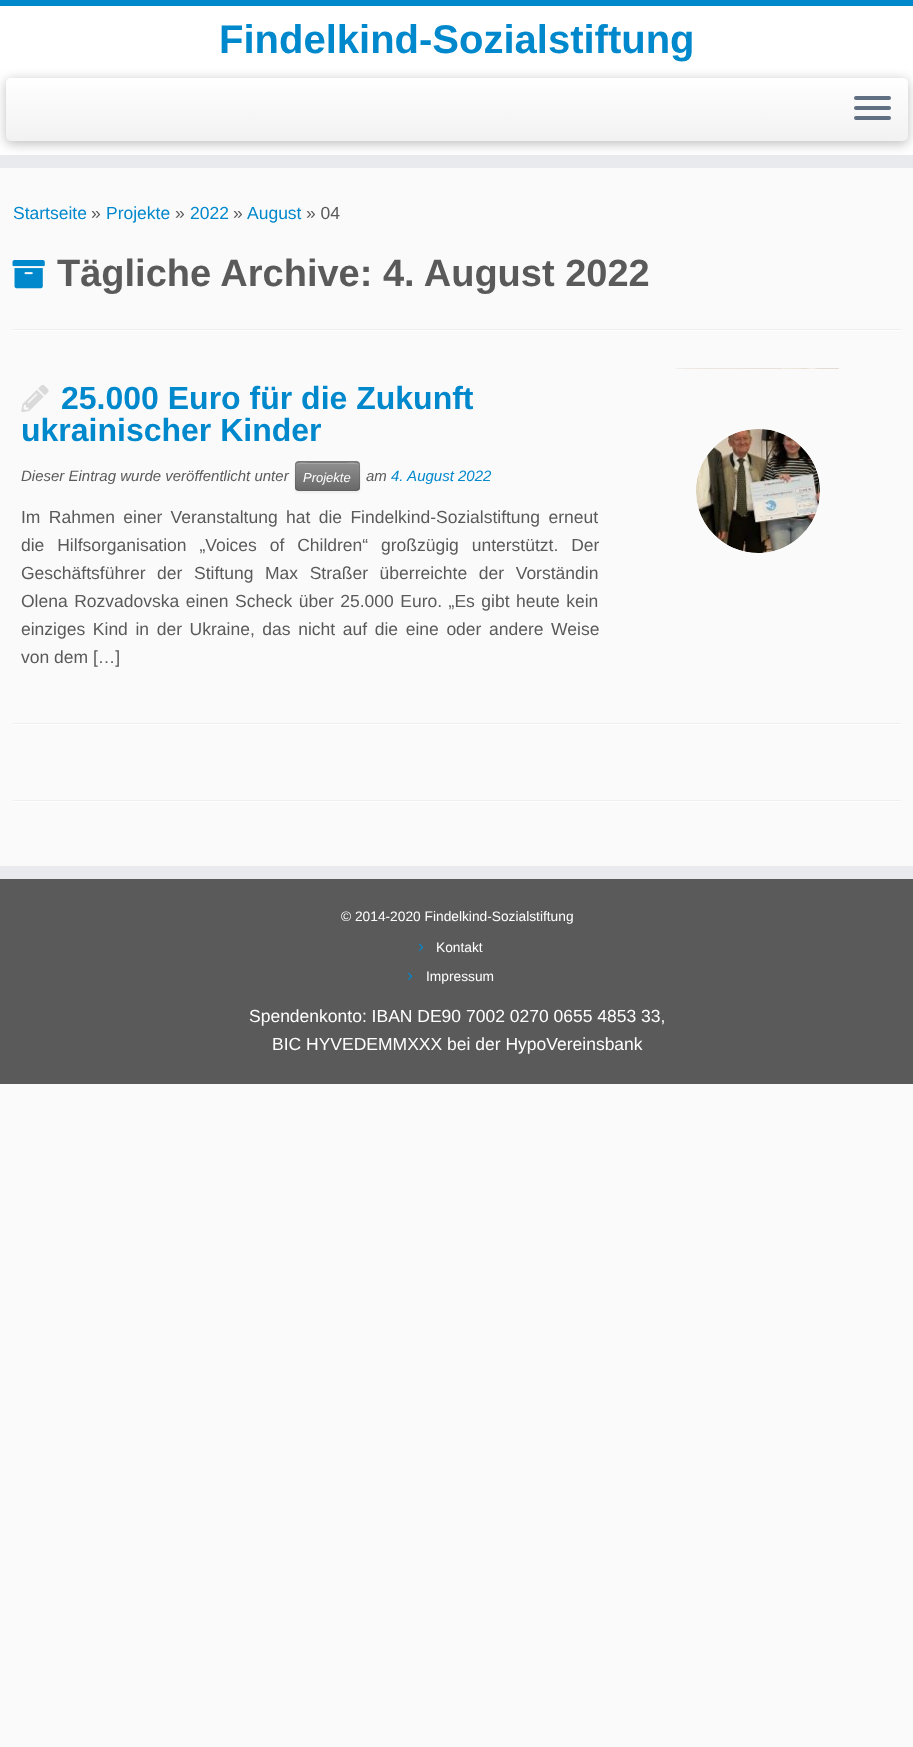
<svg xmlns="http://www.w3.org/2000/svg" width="913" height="1747">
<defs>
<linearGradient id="g1" gradientUnits="userSpaceOnUse" x1="457" y1="77" x2="457" y2="141"><stop offset="0" stop-color="#fff"/><stop offset="1" stop-color="#f2f2f2"/></linearGradient>
<clipPath id="clip1"><rect x="295" y="461" width="65" height="30" rx="4"/></clipPath>
<linearGradient id="g2" gradientUnits="userSpaceOnUse" x1="328" y1="463" x2="328" y2="490"><stop offset="0" stop-color="#8f8f8f"/><stop offset="1" stop-color="#696969"/></linearGradient>
<clipPath id="clip2"><rect x="675" y="369" width="164" height="250"/></clipPath>
</defs>
<rect width="100%" height="100%" fill="#fafafa"/>
<rect y="6" width="913" height="149" fill="#fff"/>
<rect width="913" height="6" fill="#08c"/>
<rect y="155" width="913" height="13" fill="#e9eaee"/>
<text x="219" y="53" style="font-family:Liberation Sans;font-size:40px;font-weight:bold;fill:#08c">Findelkind-Sozialstiftung</text>
<rect x="6" y="80" width="902" height="64" rx="5" fill="#00000040" filter="blur(6px)"/>
<rect x="6" y="78" width="902" height="63" rx="5" fill="url(#g1)"/>
<rect x="854" y="96" width="37" height="4" rx="2" fill="#5f6f81"/>
<rect x="854" y="106" width="37" height="4" rx="2" fill="#5f6f81"/>
<rect x="854" y="116" width="37" height="4" rx="2" fill="#5f6f81"/>
<text x="13" y="219" style="font-family:Liberation Sans;font-size:17.5px;fill:#08c">Startseite</text>
<text x="91" y="219" style="font-family:Liberation Sans;font-size:17.5px;fill:#5a5a5a">»</text>
<text x="106" y="219" style="font-family:Liberation Sans;font-size:17.5px;fill:#08c">Projekte</text>
<text x="175" y="219" style="font-family:Liberation Sans;font-size:17.5px;fill:#5a5a5a">»</text>
<text x="190" y="219" style="font-family:Liberation Sans;font-size:17.5px;fill:#08c">2022</text>
<text x="233" y="219" style="font-family:Liberation Sans;font-size:17.5px;fill:#5a5a5a">»</text>
<text x="247" y="219" style="font-family:Liberation Sans;font-size:17.5px;fill:#08c">August</text>
<text x="306" y="219" style="font-family:Liberation Sans;font-size:17.5px;fill:#5a5a5a">» 04</text>
<image x="12" y="260" width="33" height="29" href="media/1.png"/>
<text x="57" y="286" style="font-family:Liberation Sans;font-size:38px;font-weight:bold;fill:#5a5a5a">Tägliche Archive: 4. August 2022</text>
<rect x="13" y="329" width="888" height="1" fill="#eee"/>
<rect x="13" y="330" width="888" height="1" fill="#fff"/>
<image x="21" y="385" width="28" height="27" href="media/2.png"/>
<text x="61" y="409" style="font-family:Liberation Sans;font-size:32px;font-weight:bold;fill:#08c">25.000 Euro für die Zukunft</text>
<text x="21" y="441" style="font-family:Liberation Sans;font-size:32px;font-weight:bold;fill:#08c">ukrainischer Kinder</text>
<text x="21" y="481" style="font-family:Liberation Sans;font-size:15px;font-style:italic;fill:#5a5a5a">Dieser Eintrag wurde veröffentlicht unter</text>
<rect x="295" y="463" width="65" height="30" rx="4" fill="#0000000d" filter="blur(1px)"/>
<rect x="295" y="461" width="65" height="30" rx="4" fill="#808080"/>
<g clip-path="url(#clip1)">
<rect x="295" y="463" width="65" height="27" fill="url(#g2)"/>
</g>
<path d="M299 464h57c2 0 3 1 3 2c0-5-10-3-12-3h-39c-2 0-12-2-12 3c0-1 1-2 3-2z" fill="#a5a5a5"/>
<path d="M358.5 489.5l-2 1h-58l-2-1" fill="none" stroke="#00000040" stroke-width="1.2"/>
<path d="M296.5 489.5c-2-2-1-10.5-1-13.5c0-15.5-2.5-14 13-14h38c15.5 0 13-1.5 13 14c0 3 1 11.5-1 13.5" fill="none" stroke="#0000001a" stroke-width="1.2"/>
<text x="303" y="482" style="font-family:Liberation Sans;font-size:13px;font-style:italic;fill:#fff">Projekte</text>
<text x="366" y="481" style="font-family:Liberation Sans;font-size:15px;font-style:italic;fill:#5a5a5a">am</text>
<text x="391" y="481" style="font-family:Liberation Sans;font-size:15px;font-style:italic;fill:#08c">4. August 2022</text>
<text x="21" y="523" word-spacing="3.5" style="font-family:Liberation Sans;font-size:17.5px;fill:#5a5a5a">Im Rahmen einer Veranstaltung hat die Findelkind-Sozialstiftung erneut</text>
<text x="21" y="551" word-spacing="8" style="font-family:Liberation Sans;font-size:17.5px;fill:#5a5a5a">die Hilfsorganisation „Voices of Children“ großzügig unterstützt. Der</text>
<text x="21" y="579" word-spacing="6.75" style="font-family:Liberation Sans;font-size:17.5px;fill:#5a5a5a">Geschäftsführer der Stiftung Max Straßer überreichte der Vorständin</text>
<text x="21" y="607" word-spacing="1.6" style="font-family:Liberation Sans;font-size:17.5px;fill:#5a5a5a">Olena Rozvadovska einen Scheck über 25.000 Euro. „Es gibt heute kein</text>
<text x="21" y="635" word-spacing="2.75" style="font-family:Liberation Sans;font-size:17.5px;fill:#5a5a5a">einziges Kind in der Ukraine, das nicht auf die eine oder andere Weise</text>
<text x="21" y="663" style="font-family:Liberation Sans;font-size:17.5px;fill:#5a5a5a">von dem […]</text>
<image x="675" y="368" width="164" height="185" href="media/3.png"/>
<g clip-path="url(#clip2)">
<circle cx="758" cy="491" r="121" fill="none" stroke="#fafafa" stroke-width="118"/>
<circle cx="758" cy="491" r="121" fill="none" stroke="#fafafa" stroke-width="118"/>
</g>
<rect x="13" y="723" width="888" height="1" fill="#eee"/>
<rect x="13" y="724" width="888" height="1" fill="#fff"/>
<rect x="13" y="800" width="888" height="1" fill="#eee"/>
<rect x="13" y="801" width="888" height="1" fill="#fff"/>
<rect y="879" width="913" height="205" fill="#5a5a5a"/>
<rect y="866" width="913" height="13" fill="#e9eaee"/>
<text x="341" y="921" style="font-family:Liberation Sans;font-size:13.75px;fill:#fff">© 2014-2020 Findelkind-Sozialstiftung</text>
<text x="418" y="952" style="font-family:Liberation Sans;font-size:17.5px;fill:#08c">›</text>
<text x="436" y="952" style="font-family:Liberation Sans;font-size:13.75px;fill:#fff">Kontakt</text>
<text x="407" y="981" style="font-family:Liberation Sans;font-size:17.5px;fill:#08c">›</text>
<text x="426" y="981" style="font-family:Liberation Sans;font-size:13.75px;fill:#fff">Impressum</text>
<text x="249" y="1022" style="font-family:Liberation Sans;font-size:17.5px;fill:#fff">Spendenkonto: IBAN DE90 7002 0270 0655 4853 33,</text>
<text x="272" y="1050" style="font-family:Liberation Sans;font-size:17.5px;fill:#fff">BIC HYVEDEMMXXX bei der HypoVereinsbank</text>
</svg>
